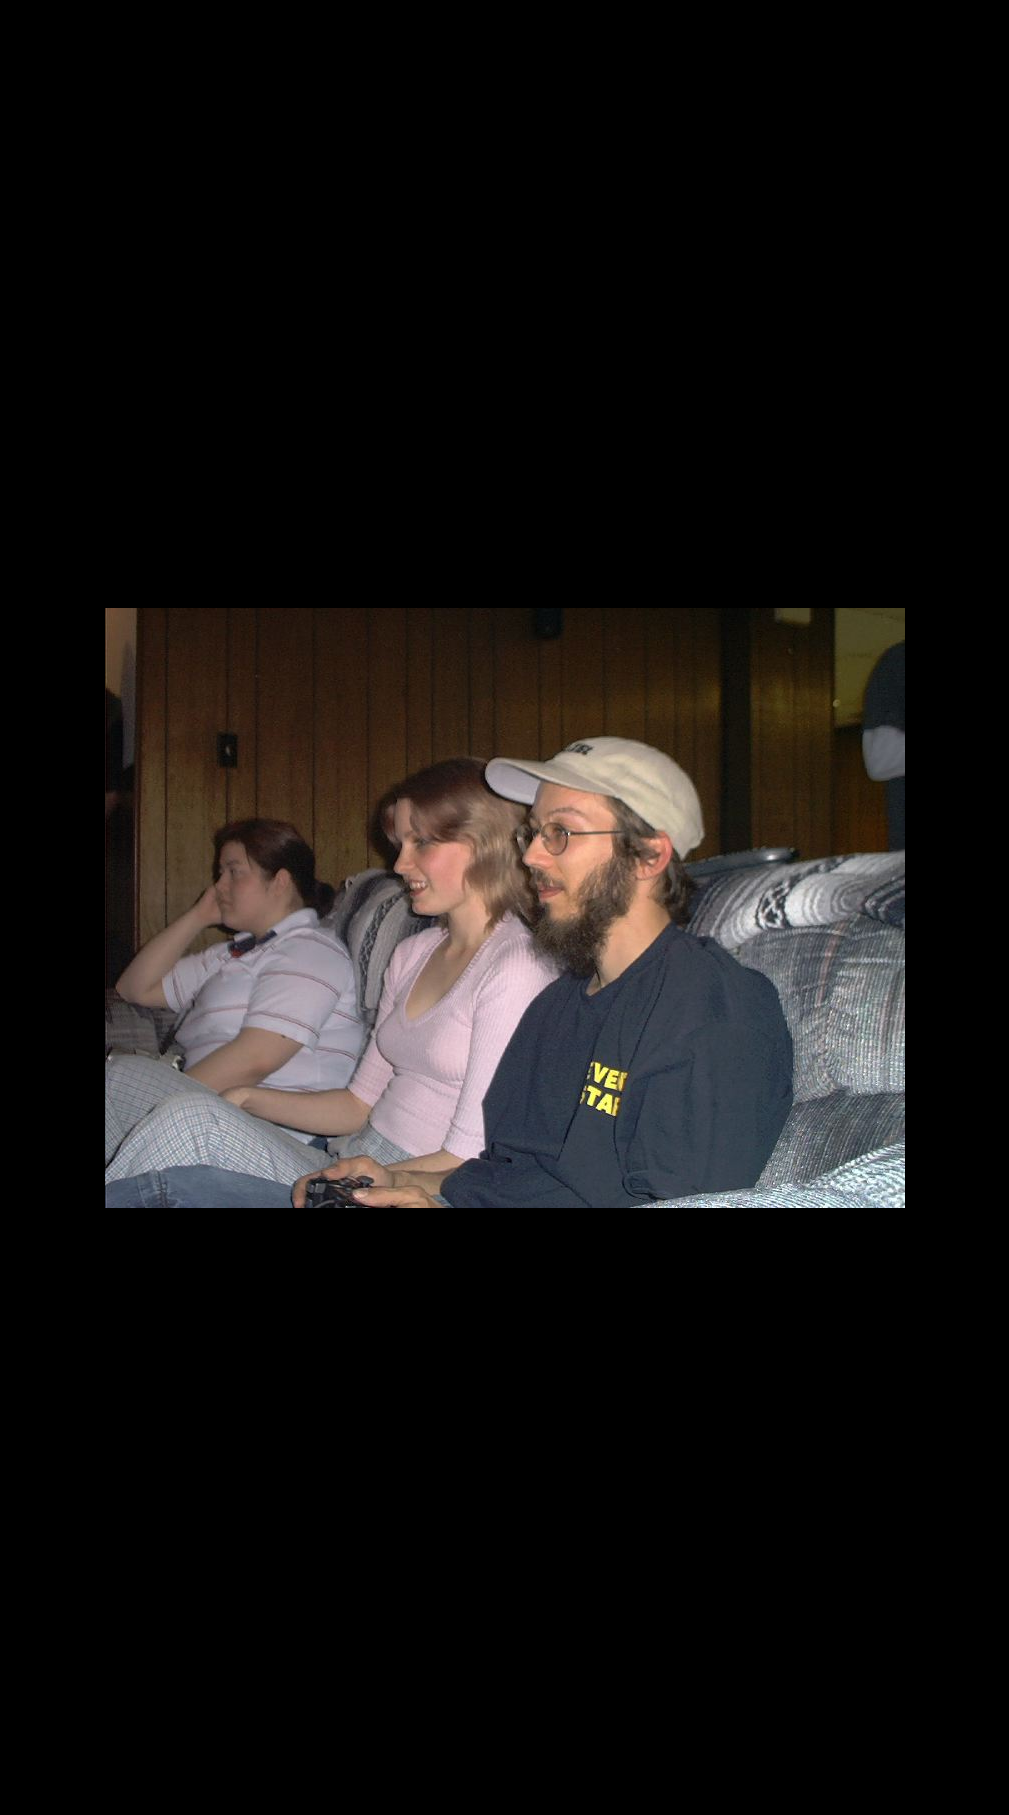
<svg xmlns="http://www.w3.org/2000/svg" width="1009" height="1815">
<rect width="100%" height="100%" fill="#000"/>
<image x="105" y="608" width="800" height="600" href="media/1.png"/>
</svg>
